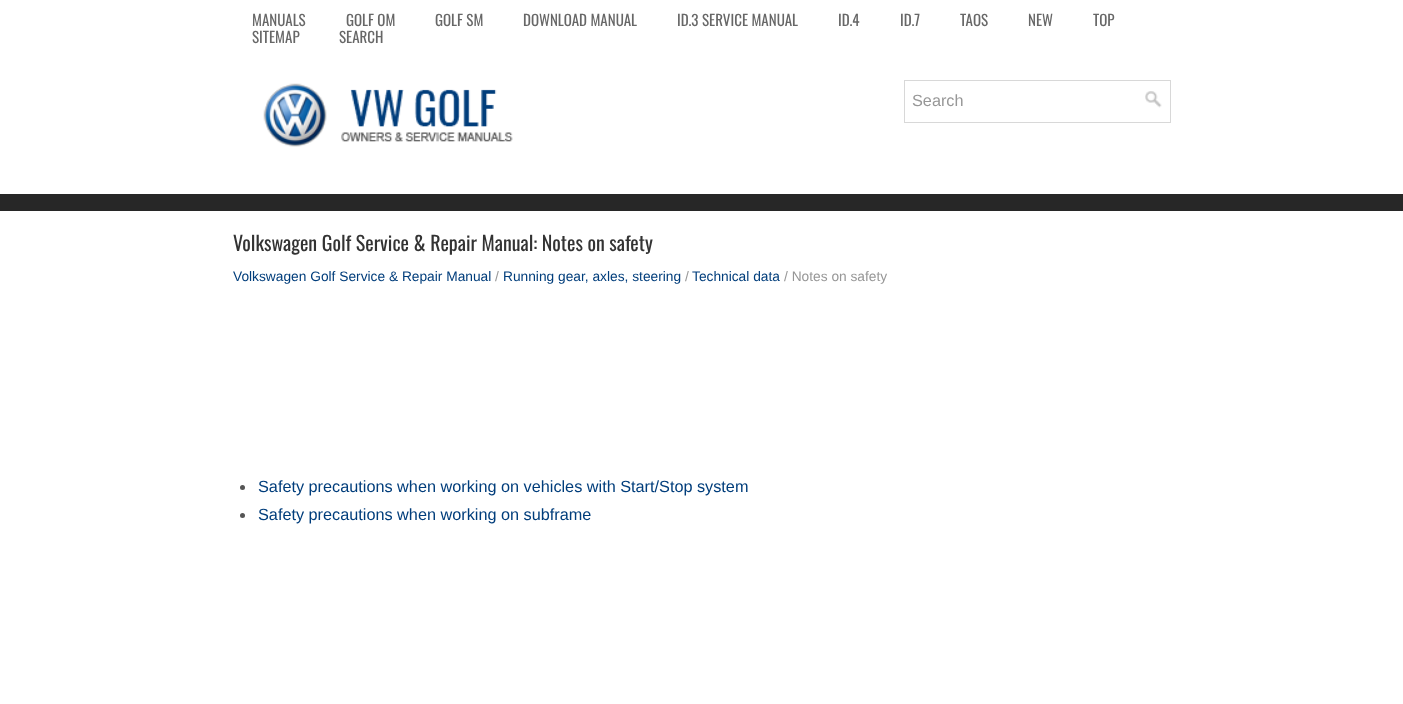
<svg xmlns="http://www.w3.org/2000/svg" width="1403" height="704">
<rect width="100%" height="100%" fill="#fff"/>
<rect y="194" width="1403" height="17" fill="#272727"/>
<text x="252" y="26" style="font-family:Oswald;font-size:15px;fill:#676767">MANUALS</text>
<text x="346" y="26" style="font-family:Oswald;font-size:15px;fill:#676767">GOLF OM</text>
<text x="435" y="26" style="font-family:Oswald;font-size:15px;fill:#676767">GOLF SM</text>
<text x="523" y="26" style="font-family:Oswald;font-size:15px;fill:#676767">DOWNLOAD MANUAL</text>
<text x="677" y="26" style="font-family:Oswald;font-size:15px;fill:#676767">ID.3 SERVICE MANUAL</text>
<text x="838" y="26" style="font-family:Oswald;font-size:15px;fill:#676767">ID.4</text>
<text x="900" y="26" style="font-family:Oswald;font-size:15px;fill:#676767">ID.7</text>
<text x="960" y="26" style="font-family:Oswald;font-size:15px;fill:#676767">TAOS</text>
<text x="1028" y="26" style="font-family:Oswald;font-size:15px;fill:#676767">NEW</text>
<text x="1093" y="26" style="font-family:Oswald;font-size:15px;fill:#676767">TOP</text>
<text x="252" y="43" style="font-family:Oswald;font-size:15px;fill:#676767">SITEMAP</text>
<text x="339" y="43" style="font-family:Oswald;font-size:15px;fill:#676767">SEARCH</text>
<image x="263" y="83" width="250" height="64" href="media/1.png"/>
<rect x="904.5" y="80.5" width="266" height="42" fill="none" stroke="#d8d8d8"/>
<text x="912" y="106" style="font-family:Liberation Sans;font-size:16.25px;fill:#979797">Search</text>
<image x="1145" y="91" width="17" height="17" href="media/2.png"/>
<text x="233" y="251" style="font-family:Oswald;font-size:20px;fill:#333">Volkswagen Golf Service &amp; Repair Manual: Notes on safety</text>
<text x="233" y="281" style="font-family:Liberation Sans;font-size:13.75px;fill:#003d7b">Volkswagen Golf Service &amp; Repair Manual</text>
<text x="495" y="281" style="font-family:Liberation Sans;font-size:13.75px;fill:#979797">/</text>
<text x="503" y="281" style="font-family:Liberation Sans;font-size:13.75px;fill:#003d7b">Running gear, axles, steering</text>
<text x="685" y="281" style="font-family:Liberation Sans;font-size:13.75px;fill:#979797">/</text>
<text x="692" y="281" style="font-family:Liberation Sans;font-size:13.75px;fill:#003d7b">Technical data</text>
<text x="784" y="281" style="font-family:Liberation Sans;font-size:13.75px;fill:#979797">/ Notes on safety</text>
<circle cx="242.5" cy="487.5" r="2.5" fill="#555"/>
<text x="258" y="492" style="font-family:Liberation Sans;font-size:16.25px;fill:#003d7b">Safety precautions when working on vehicles with Start/Stop system</text>
<circle cx="242.5" cy="515.5" r="2.5" fill="#555"/>
<text x="258" y="520" style="font-family:Liberation Sans;font-size:16.25px;fill:#003d7b">Safety precautions when working on subframe</text>
</svg>
